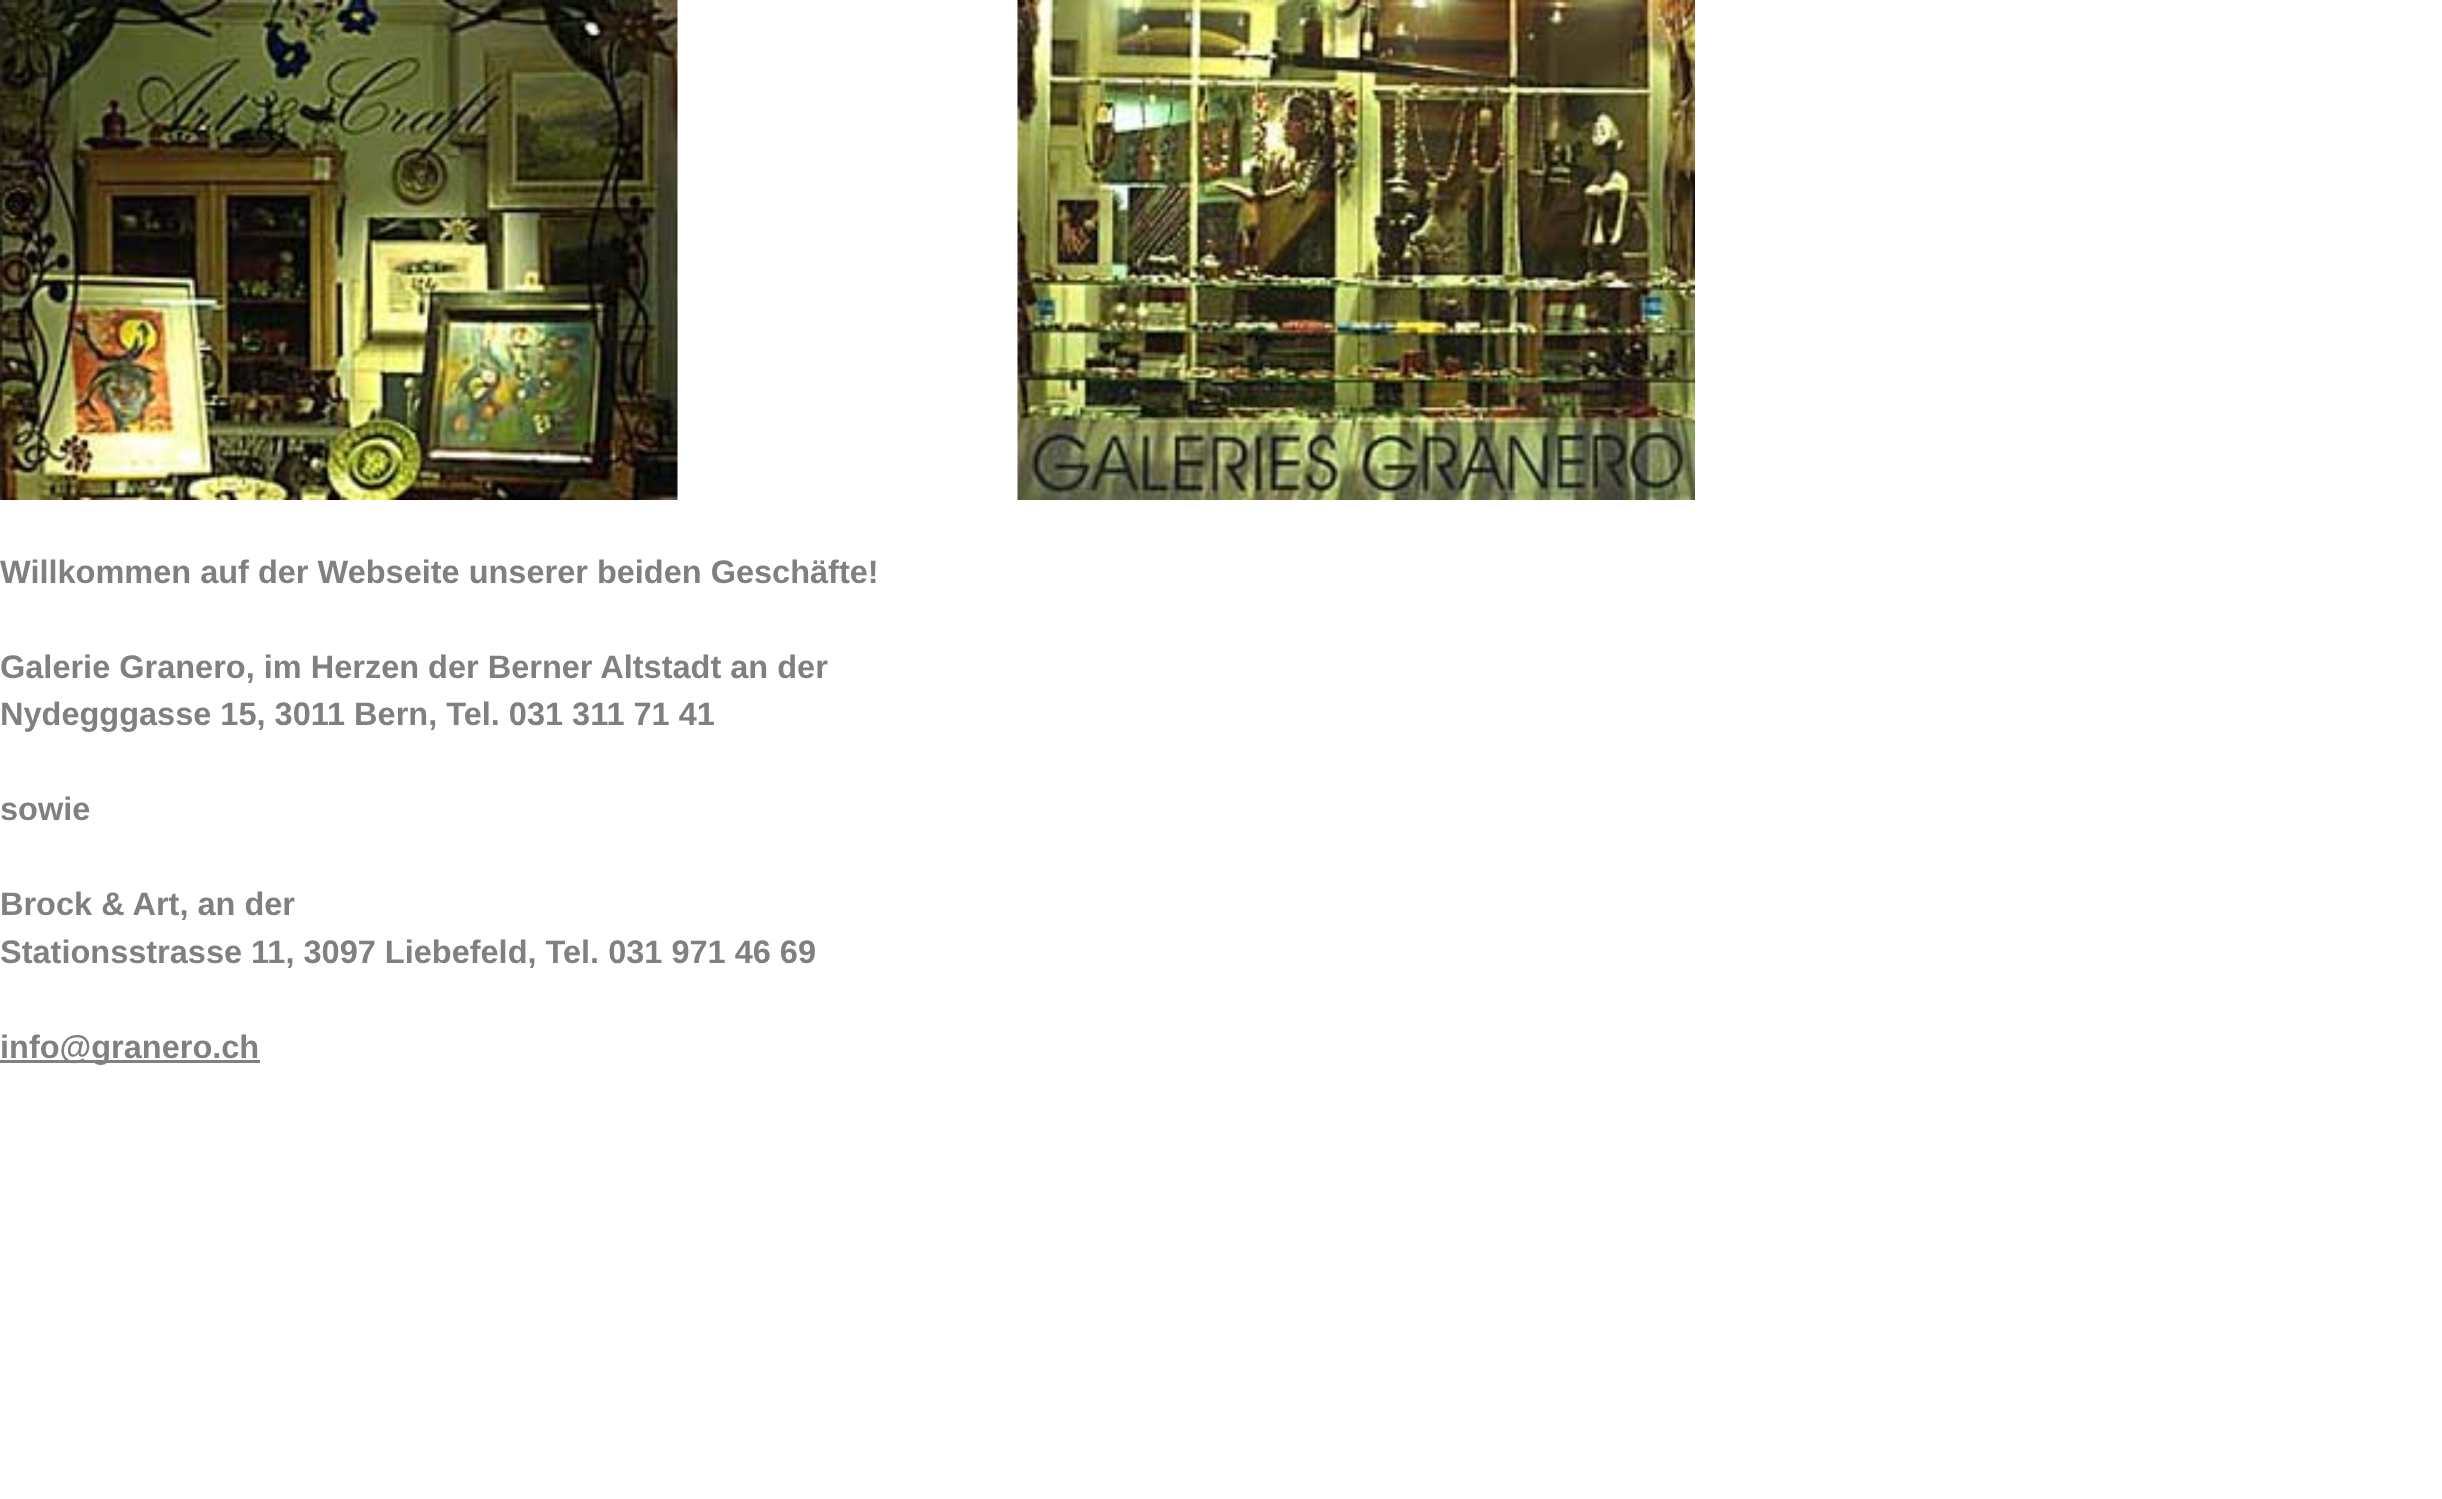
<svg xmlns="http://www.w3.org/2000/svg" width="2442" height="1499">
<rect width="100%" height="100%" fill="#fff"/>
<image x="0" y="0" width="678" height="500" href="media/1.png"/>
<image x="1017" y="0" width="678" height="500" href="media/2.png"/>
<text x="0" y="583" style="font-family:Liberation Sans;font-size:32.5px;font-weight:bold;fill:#808080">Willkommen auf der Webseite unserer beiden Geschäfte!</text>
<text x="0" y="678" style="font-family:Liberation Sans;font-size:32.5px;font-weight:bold;fill:#808080">Galerie Granero, im Herzen der Berner Altstadt an der</text>
<text x="0" y="725" style="font-family:Liberation Sans;font-size:32.5px;font-weight:bold;fill:#808080">Nydegggasse 15, 3011 Bern, Tel. 031 311 71 41</text>
<text x="0" y="820" style="font-family:Liberation Sans;font-size:32.5px;font-weight:bold;fill:#808080">sowie</text>
<text x="0" y="915" style="font-family:Liberation Sans;font-size:32.5px;font-weight:bold;fill:#808080">Brock &amp; Art, an der</text>
<text x="0" y="963" style="font-family:Liberation Sans;font-size:32.5px;font-weight:bold;fill:#808080">Stationsstrasse 11, 3097 Liebefeld, Tel. 031 971 46 69</text>
<rect y="1060" width="260" height="3" fill="#808080"/>
<text x="0" y="1058" style="font-family:Liberation Sans;font-size:32.5px;font-weight:bold;fill:#808080">info@granero.ch</text>
</svg>
